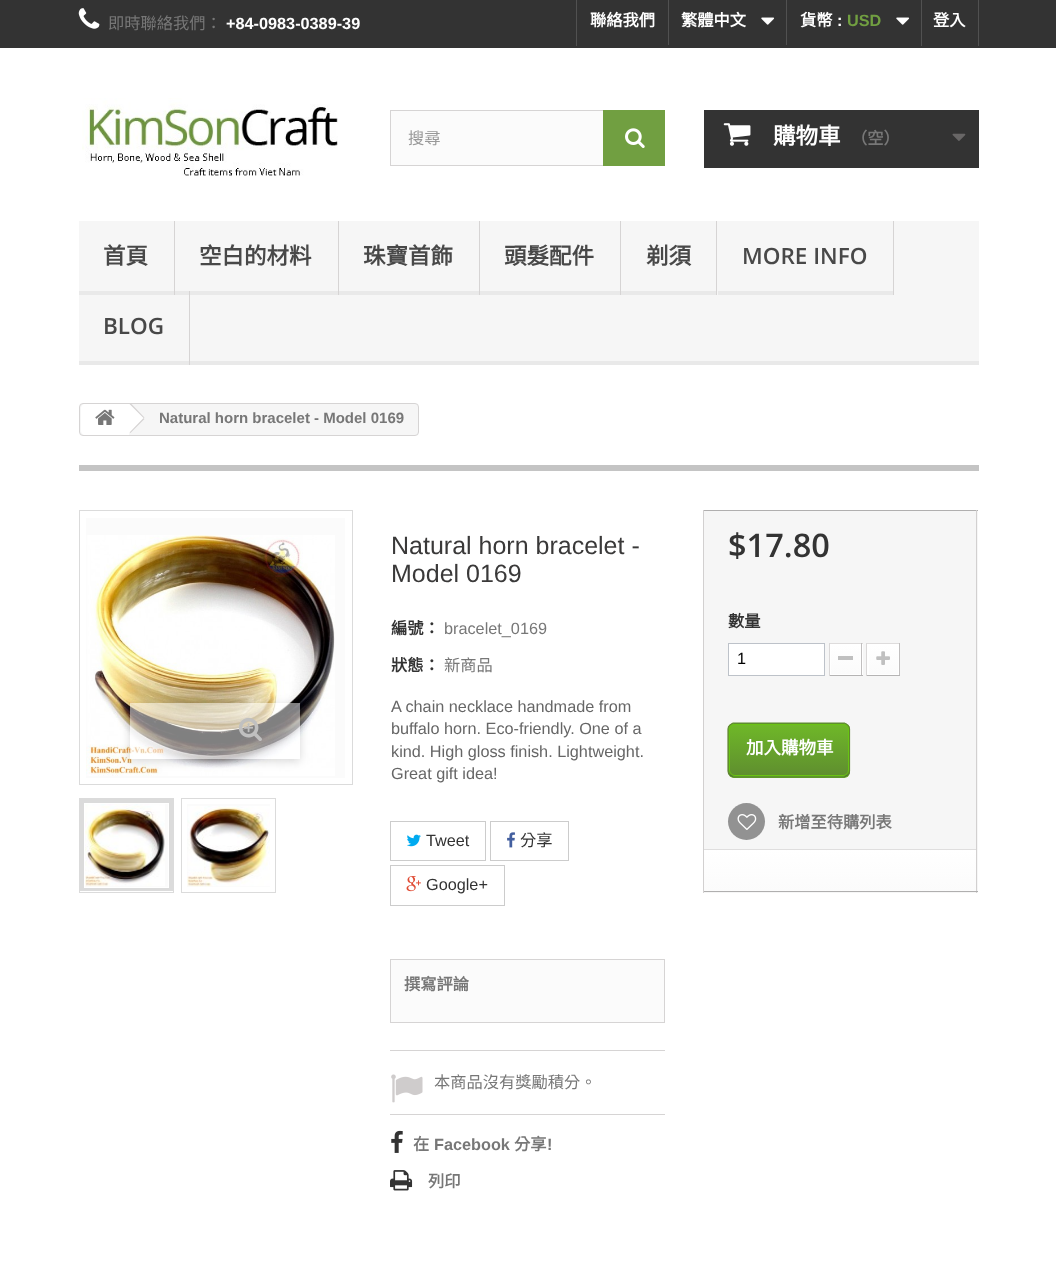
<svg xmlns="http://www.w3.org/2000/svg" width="1056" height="1288">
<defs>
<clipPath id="clip1"><path d="M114 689h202v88h-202zm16 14h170v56h-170z" clip-rule="evenodd"/></clipPath>
<linearGradient id="g1" gradientUnits="userSpaceOnUse" x1="846" y1="645" x2="846" y2="674"><stop offset="0" stop-color="#fff"/><stop offset="1" stop-color="#fbfbfb"/></linearGradient>
<linearGradient id="g2" gradientUnits="userSpaceOnUse" x1="883" y1="645" x2="883" y2="674"><stop offset="0" stop-color="#fff"/><stop offset="1" stop-color="#fbfbfb"/></linearGradient>
<clipPath id="clip2"><rect x="728" y="723" width="122" height="55" rx="6"/></clipPath>
<linearGradient id="g3" gradientUnits="userSpaceOnUse" x1="789" y1="671" x2="789" y2="724"><stop offset="0" stop-color="#6fb828"/><stop offset="1" stop-color="#5f8e2f"/></linearGradient>
<linearGradient id="g4" gradientUnits="userSpaceOnUse" x1="789" y1="724" x2="789" y2="776"><stop offset="0" stop-color="#6fb828"/><stop offset="1" stop-color="#5f8e2f"/></linearGradient>
<linearGradient id="g5" gradientUnits="userSpaceOnUse" x1="789" y1="776" x2="789" y2="829"><stop offset="0" stop-color="#6fb828"/><stop offset="1" stop-color="#5f8e2f"/></linearGradient>
<linearGradient id="g6" gradientUnits="userSpaceOnUse" x1="840" y1="850" x2="840" y2="891"><stop offset="0" stop-color="#fff"/><stop offset="1" stop-color="#fbfbfb"/></linearGradient>
</defs>
<rect width="100%" height="100%" fill="#fff"/>
<rect width="1056" height="48" fill="#333"/>
<image x="78" y="8" width="22" height="21" href="media/1.png"/>
<text x="108" y="29" style="font-family:Noto Sans CJK TC;font-size:16.25px;fill:#777">即時聯絡我們：</text>
<text x="226" y="29" style="font-family:Liberation Sans;font-size:16.25px;font-weight:bold;fill:#fff">+84-0983-0389-39</text>
<rect x="576" width="1" height="46" fill="#515151"/>
<text x="590" y="26" style="font-family:Noto Sans CJK TC;font-size:16.25px;font-weight:bold;fill:#fff">聯絡我們</text>
<rect x="668" width="1" height="45" fill="#515151"/>
<text x="681" y="26" style="font-family:Noto Sans CJK TC;font-size:16.25px;font-weight:bold;fill:#fff">繁體中文</text>
<image x="761" y="17" width="14" height="8" href="media/2.png"/>
<rect x="786" width="1" height="45" fill="#515151"/>
<text x="800" y="26" style="font-family:Noto Sans CJK TC;font-size:16.25px;font-weight:bold;fill:#fff">貨幣</text>
<text x="837" y="26" style="font-family:Liberation Sans;font-size:16.25px;font-weight:bold;fill:#fff">:</text>
<text x="847" y="26" style="font-family:Liberation Sans;font-size:16.25px;font-weight:bold;fill:#719f41">USD</text>
<image x="896" y="17" width="14" height="8" href="media/2.png"/>
<rect x="978" width="1" height="46" fill="#515151"/>
<rect x="921" width="1" height="46" fill="#515151"/>
<text x="933" y="26" style="font-family:Noto Sans CJK TC;font-size:16.25px;font-weight:bold;fill:#fff">登入</text>
<image x="82" y="98" width="256" height="78" href="media/3.png"/>
<rect x="391" y="111" width="212" height="54" fill="#fbfbfb"/>
<rect x="390.5" y="110.5" width="274" height="55" fill="none" stroke="#d6d4d4"/>
<text x="408" y="144" style="font-family:Noto Sans CJK TC;font-size:16.25px;fill:#999">搜尋</text>
<rect x="603" y="110" width="62" height="56" fill="#719f41"/>
<image x="625" y="128" width="20" height="20" href="media/4.png"/>
<rect x="704" y="110" width="275" height="58" fill="#333"/>
<image x="723" y="123" width="28" height="23" href="media/5.png"/>
<text x="773" y="144" style="font-family:Noto Sans CJK TC;font-size:22.5px;font-weight:bold;fill:#fff">購物車</text>
<text x="851" y="144" style="font-family:Noto Sans CJK TC;font-size:16.25px;font-weight:bold;fill:#777">（空）</text>
<image x="952" y="133" width="14" height="8" href="media/6.png"/>
<rect x="79" y="221" width="900" height="140" fill="#f6f6f6"/>
<rect x="79" y="361" width="900" height="4" fill="#e9e9e9"/>
<rect x="174" y="221" width="1" height="74" fill="#d6d4d4"/>
<rect x="79" y="291" width="95" height="4" fill="#e9e9e9"/>
<text x="103" y="264" style="font-family:Noto Sans CJK TC;font-size:22.5px;font-weight:bold;fill:#484848">首頁</text>
<rect x="338" y="221" width="1" height="74" fill="#d6d4d4"/>
<rect x="175" y="291" width="163" height="4" fill="#e9e9e9"/>
<text x="199" y="264" style="font-family:Noto Sans CJK TC;font-size:22.5px;font-weight:bold;fill:#484848">空白的材料</text>
<rect x="479" y="221" width="1" height="74" fill="#d6d4d4"/>
<rect x="339" y="291" width="140" height="4" fill="#e9e9e9"/>
<text x="363" y="264" style="font-family:Noto Sans CJK TC;font-size:22.5px;font-weight:bold;fill:#484848">珠寶首飾</text>
<rect x="620" y="221" width="1" height="74" fill="#d6d4d4"/>
<rect x="480" y="291" width="140" height="4" fill="#e9e9e9"/>
<text x="504" y="264" style="font-family:Noto Sans CJK TC;font-size:22.5px;font-weight:bold;fill:#484848">頭髮配件</text>
<rect x="716" y="221" width="1" height="74" fill="#d6d4d4"/>
<rect x="621" y="291" width="95" height="4" fill="#e9e9e9"/>
<text x="646" y="264" style="font-family:Noto Sans CJK TC;font-size:22.5px;font-weight:bold;fill:#484848">剃須</text>
<rect x="893" y="221" width="1" height="74" fill="#d6d4d4"/>
<rect x="718" y="291" width="175" height="4" fill="#e9e9e9"/>
<text x="742" y="264" style="font-family:Open Sans;font-size:22.5px;font-weight:600;fill:#484848">MORE INFO</text>
<rect x="189" y="291" width="1" height="74" fill="#d6d4d4"/>
<text x="103" y="334" style="font-family:Open Sans;font-size:22.5px;font-weight:600;fill:#484848">BLOG</text>
<rect x="79.5" y="403.5" width="339" height="32" rx="3.5" fill="#f6f6f6" stroke="#d6d4d4"/>
<path d="M85 404h44v31h-44c-2 0-4-2-4-4v-23c0-2 2-4 4-4z" fill="#fff"/>
<path d="M131 404h-3.5l-12.5 12.5c-.5 1-.5 2.5 0 3.5l12.5 12.5c1 1 2.5 1 3.5 0l12.5-12.5c1-1 1-2.5 0-3.5z" fill="#fff"/>
<image x="95" y="409" width="20" height="16" href="media/7.png"/>
<path d="M131.5 404l13 13.5l-1 .5l-14-14zm12 14l1 1l-14 14l-1-.5z" fill="#d6d4d4"/>
<text x="159" y="423" style="font-family:Liberation Sans;font-size:15px;font-weight:bold;fill:#777">Natural horn bracelet - Model 0169</text>
<rect x="79" y="465" width="900" height="6" fill="#c4c4c4"/>
<rect x="79.5" y="510.5" width="273" height="274" fill="none" stroke="#dbdbdb"/>
<rect x="86" y="518" width="259" height="260" fill="#fbfbfb"/>
<image x="86" y="535" width="249" height="241" href="media/8.png"/>
<g clip-path="url(#clip1)">
<rect x="130" y="705" width="170" height="56" fill="#00000029" filter="blur(5px)"/>
</g>
<rect x="130" y="703" width="170" height="56" fill="#ffffff80"/>
<image x="238" y="717" width="24" height="24" href="media/9.png"/>
<rect x="79.5" y="798.5" width="94" height="94" fill="none" stroke="#dbdbdb"/>
<rect x="85" y="804" width="83" height="83" fill="#fbfbfb"/>
<rect x="82" y="801" width="89" height="88" fill="none" stroke="#dbdbdb" stroke-width="4"/>
<rect x="84.5" y="803.5" width="84" height="84" fill="none" stroke="#fff"/>
<image x="85" y="804" width="80" height="83" href="media/10.png"/>
<rect x="181.5" y="798.5" width="94" height="94" fill="none" stroke="#dbdbdb"/>
<rect x="187" y="804" width="83" height="83" fill="#fbfbfb"/>
<image x="187" y="806" width="83" height="81" href="media/11.png"/>
<text x="391" y="554" style="font-family:Liberation Sans;font-size:25px;fill:#3a3939">Natural horn bracelet -</text>
<text x="391" y="582" style="font-family:Liberation Sans;font-size:25px;fill:#3a3939">Model 0169</text>
<text x="391" y="634" style="font-family:Noto Sans CJK TC;font-size:16.25px;font-weight:bold;fill:#333">編號：</text>
<text x="444" y="634" style="font-family:Liberation Sans;font-size:16.25px;fill:#777">bracelet_0169</text>
<text x="391" y="671" style="font-family:Noto Sans CJK TC;font-size:16.25px;font-weight:bold;fill:#333">狀態：</text>
<text x="444" y="671" style="font-family:Noto Sans CJK TC;font-size:16.25px;fill:#777">新商品</text>
<text x="391" y="712" style="font-family:Liberation Sans;font-size:16.25px;fill:#666">A chain necklace handmade from</text>
<text x="391" y="734" style="font-family:Liberation Sans;font-size:16.25px;fill:#666">buffalo horn. Eco-friendly. One of a</text>
<text x="391" y="757" style="font-family:Liberation Sans;font-size:16.25px;fill:#666">kind. High gloss finish. Lightweight.</text>
<text x="391" y="779" style="font-family:Liberation Sans;font-size:16.25px;fill:#666">Great gift idea!</text>
<rect x="390.5" y="821.5" width="95" height="39" fill="none" stroke="#ccc"/>
<image x="407" y="834" width="14" height="13" href="media/12.png"/>
<text x="426" y="846" style="font-family:Liberation Sans;font-size:16.25px;fill:#333">Tweet</text>
<rect x="490.5" y="821.5" width="78" height="39" fill="none" stroke="#ccc"/>
<image x="507" y="832" width="8" height="16" href="media/13.png"/>
<text x="520" y="846" style="font-family:Noto Sans CJK TC;font-size:16.25px;fill:#333">分享</text>
<rect x="390.5" y="865.5" width="114" height="40" fill="none" stroke="#ccc"/>
<image x="406" y="876" width="15" height="16" href="media/14.png"/>
<text x="426" y="890" style="font-family:Liberation Sans;font-size:16.25px;fill:#333">Google+</text>
<rect x="390.5" y="959.5" width="274" height="63" fill="#fbfbfb" stroke="#d6d4d4"/>
<text x="404" y="990" style="font-family:Noto Sans CJK TC;font-size:16.25px;font-weight:bold;fill:#777">撰寫評論</text>
<rect x="390" y="1050" width="275" height="1" fill="#d6d4d4"/>
<rect x="390" y="1114" width="275" height="1" fill="#d6d4d4"/>
<image x="391" y="1074" width="32" height="29" href="media/15.png"/>
<text x="434" y="1088" style="font-family:Noto Sans CJK TC;font-size:16.25px;fill:#777">本商品沒有獎勵積分。</text>
<image x="391" y="1130" width="12" height="23" href="media/16.png"/>
<text x="413" y="1150" style="font-family:Noto Sans CJK TC;font-size:16.25px;font-weight:bold;fill:#777">在</text>
<text x="434" y="1150" style="font-family:Liberation Sans;font-size:16.25px;font-weight:bold;fill:#777">Facebook</text>
<text x="514" y="1150" style="font-family:Noto Sans CJK TC;font-size:16.25px;font-weight:bold;fill:#777">分享</text>
<text x="547" y="1150" style="font-family:Liberation Sans;font-size:16.25px;font-weight:bold;fill:#777">!</text>
<image x="390" y="1170" width="23" height="21" href="media/17.png"/>
<text x="428" y="1187" style="font-family:Noto Sans CJK TC;font-size:16.25px;font-weight:bold;fill:#777">列印</text>
<rect x="704" y="511" width="274" height="382" fill="#f6f6f6"/>
<rect x="703" y="510" width="275" height="1" fill="#b0afaf"/>
<rect x="976" y="510" width="1" height="383" fill="#d2d0d0"/>
<rect x="703" y="891" width="275" height="1" fill="#b0afaf"/>
<rect x="703" y="510" width="1" height="383" fill="#d2d0d0"/>
<text x="728" y="557" style="font-family:Open Sans;font-size:32.5px;font-weight:600;fill:#333">$17.80</text>
<text x="728" y="627" style="font-family:Noto Sans CJK TC;font-size:16.25px;font-weight:bold;fill:#333">數量</text>
<rect x="728.5" y="643.5" width="96" height="32" fill="#fff" stroke="#bdc2c9"/>
<text x="737" y="664" style="font-family:Liberation Sans;font-size:16.25px;fill:#000">1</text>
<rect x="862" y="644" width="1" height="31" fill="#fff"/>
<rect x="829" y="643" width="34" height="1" fill="#dedcdc"/>
<rect x="861" y="643" width="1" height="33" fill="#c1bfbf"/>
<rect x="829" y="675" width="34" height="1" fill="#b5b4b4"/>
<rect x="829" y="643" width="1" height="33" fill="#dad8d8"/>
<rect x="831" y="645" width="29" height="29" fill="url(#g1)"/>
<rect x="830.5" y="644.5" width="30" height="30" fill="none" stroke="#fff"/>
<rect x="838" y="656" width="15" height="4" fill="#c0c0c0"/>
<rect x="867" y="644" width="1" height="31" fill="#fff"/>
<rect x="866" y="643" width="34" height="1" fill="#dedcdc"/>
<rect x="899" y="643" width="1" height="33" fill="#c1bfbf"/>
<rect x="866" y="675" width="34" height="1" fill="#b5b4b4"/>
<rect x="866" y="643" width="1" height="33" fill="#dad8d8"/>
<rect x="869" y="645" width="29" height="29" fill="url(#g2)"/>
<rect x="868.5" y="644.5" width="30" height="30" fill="none" stroke="#fff"/>
<image x="876" y="651" width="14" height="14" href="media/18.png"/>
<g clip-path="url(#clip2)">
<rect x="728" y="723" width="122" height="1" fill="url(#g3)"/>
<rect x="728" y="724" width="122" height="52" fill="url(#g4)"/>
<rect x="728" y="776" width="122" height="2" fill="url(#g5)"/>
</g>
<path d="M730 725l3-2h111.5l3 2" fill="none" stroke="#5f8c2f" stroke-width="1.2"/>
<path d="M847.5 725c1.5 1 2 2.5 2 4v42c0 1.5-.5 3-2 4" fill="none" stroke="#5f862f" stroke-width="1.2"/>
<path d="M847.5 775l-3 2h-111.5l-3-2" fill="none" stroke="#4f762f" stroke-width="1.2"/>
<path d="M730 775c-1.5-1-2-2.5-2-4v-42c0-1.5 .5-3 2-4" fill="none" stroke="#5f862f" stroke-width="1.2"/>
<rect x="729.5" y="724.5" width="119" height="51" rx="5.5" fill="none" stroke="#69c412"/>
<text x="746" y="754" style="font-family:Noto Sans CJK TC;font-size:17.5px;font-weight:bold;fill:#fff">加入購物車</text>
<circle cx="746.5" cy="821.5" r="18.5" fill="#929292"/>
<image x="737" y="814" width="20" height="16" href="media/19.png"/>
<text x="778" y="828" style="font-family:Noto Sans CJK TC;font-size:16.25px;font-weight:bold;fill:#777">新增至待購列表</text>
<rect x="704" y="850" width="272" height="41" fill="url(#g6)"/>
<rect x="704" y="849" width="272" height="1" fill="#dfdede"/>
</svg>
